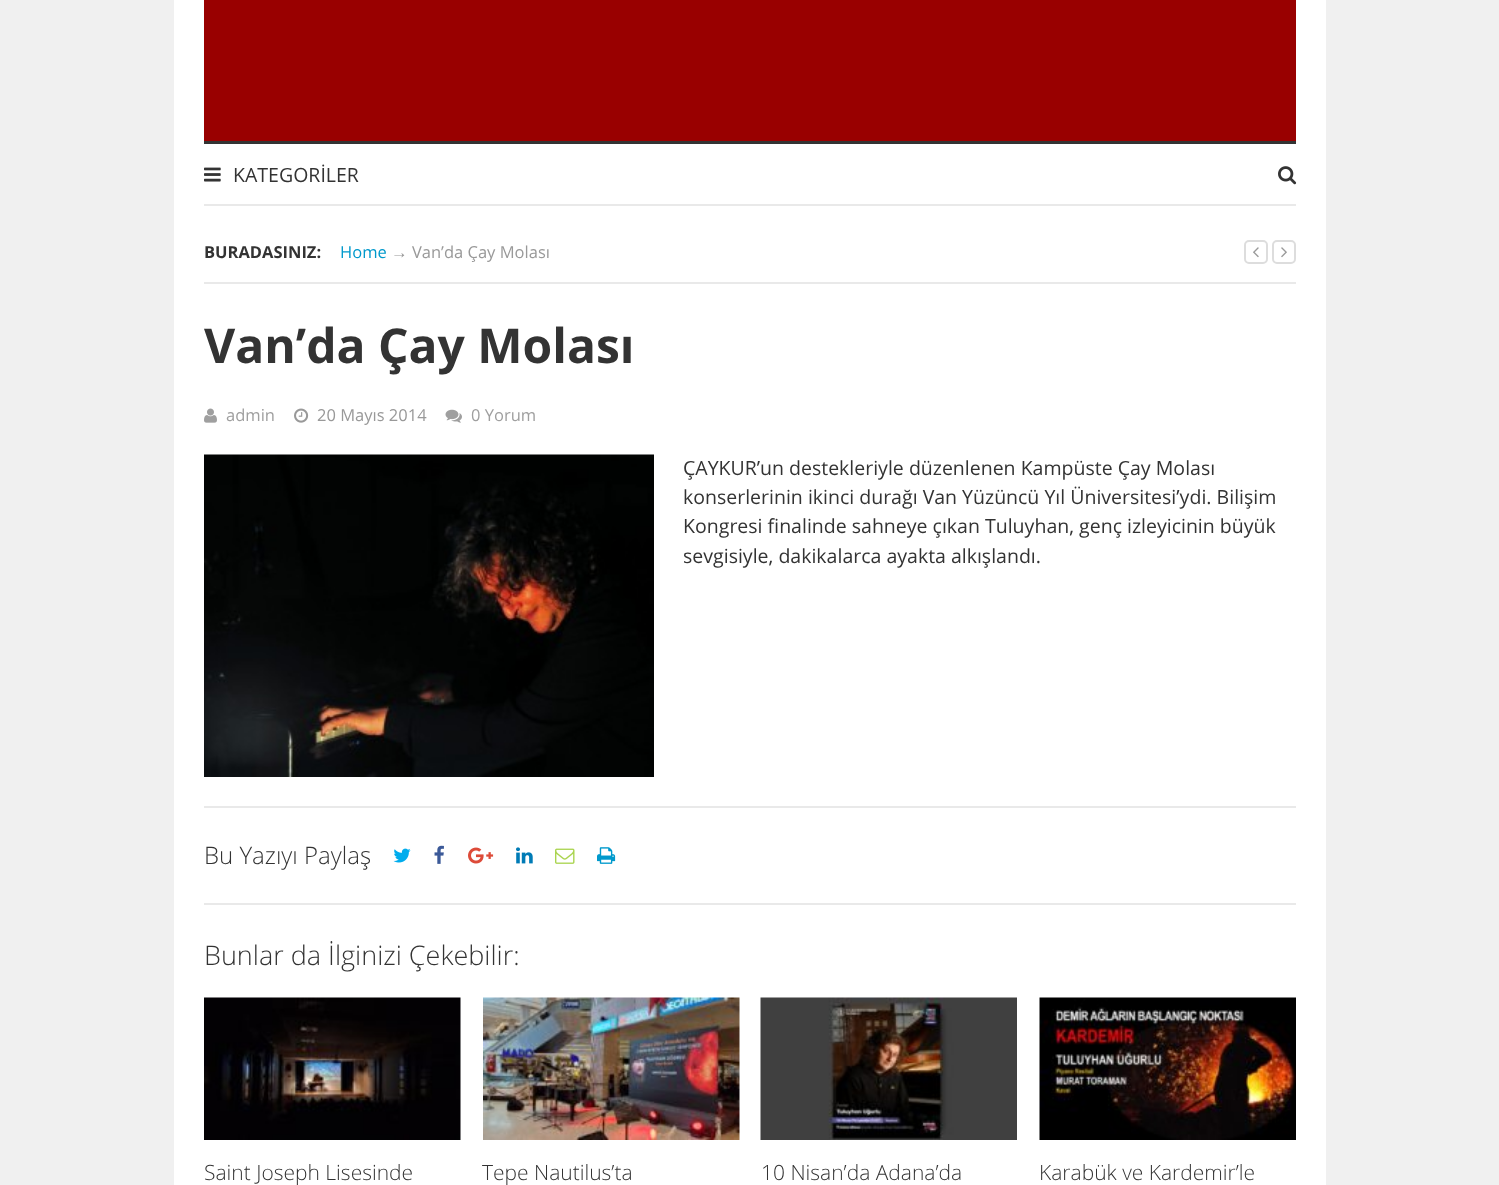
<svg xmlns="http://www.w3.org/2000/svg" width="1499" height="1185">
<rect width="100%" height="100%" fill="#f0f0f0"/>
<rect x="174" width="1152" height="1185" fill="#fff"/>
<rect x="204" width="1092" height="141" fill="#900"/>
<rect x="204" y="141" width="1092" height="3" fill="#333"/>
<rect x="204" y="204" width="1092" height="2" fill="#e9e9e9"/>
<image x="204" y="167" width="17" height="15" href="media/1.png"/>
<text x="233" y="182" style="font-family:Open Sans;font-size:19.5px;fill:#333">KATEGORİLER</text>
<image x="1278" y="166" width="19" height="19" href="media/2.png"/>
<rect x="204" y="282" width="1092" height="2" fill="#e9e9e9"/>
<text x="204" y="258" style="font-family:Open Sans;font-size:16.5px;font-weight:bold;fill:#333">BURADASINIZ:</text>
<text x="340" y="258" style="font-family:Open Sans;font-size:16.5px;fill:#09c">Home</text>
<text x="391" y="258" style="font-family:Liberation Sans;font-size:16.5px;fill:#999">→</text>
<text x="412" y="258" style="font-family:Open Sans;font-size:16.5px;fill:#999">Van’da Çay Molası</text>
<rect x="1245" y="241" width="22" height="22" rx="4" fill="none" stroke="#ddd" stroke-width="2"/>
<image x="1253" y="247" width="6" height="11" href="media/3.png"/>
<rect x="1273" y="241" width="22" height="22" rx="4" fill="none" stroke="#ddd" stroke-width="2"/>
<image x="1281" y="247" width="6" height="11" href="media/4.png"/>
<text x="204" y="363" style="font-family:Open Sans;font-size:48px;font-weight:bold;fill:#333">Van’da Çay Molası</text>
<image x="204" y="408" width="13" height="15" href="media/5.png"/>
<text x="226" y="421" style="font-family:Open Sans;font-size:16.5px;fill:#9f9f9f">admin</text>
<image x="294" y="408" width="15" height="15" href="media/6.png"/>
<text x="317" y="421" style="font-family:Open Sans;font-size:16.5px;fill:#999">20 Mayıs 2014</text>
<image x="445" y="409" width="17" height="14" href="media/7.png"/>
<text x="471" y="421" style="font-family:Open Sans;font-size:16.5px;fill:#9f9f9f">0 Yorum</text>
<image x="204" y="454" width="450" height="323" href="media/8.png"/>
<text x="683" y="475" style="font-family:Open Sans;font-size:19.5px;fill:#333">ÇAYKUR’un destekleriyle düzenlenen Kampüste Çay Molası</text>
<text x="683" y="504" style="font-family:Open Sans;font-size:19.5px;fill:#333">konserlerinin ikinci durağı Van Yüzüncü Yıl Üniversitesi’ydi. Bilişim</text>
<text x="683" y="533" style="font-family:Open Sans;font-size:19.5px;fill:#333">Kongresi finalinde sahneye çıkan Tuluyhan, genç izleyicinin büyük</text>
<text x="683" y="563" style="font-family:Open Sans;font-size:19.5px;fill:#333">sevgisiyle, dakikalarca ayakta alkışlandı.</text>
<rect x="204" y="806" width="1092" height="2" fill="#e9e9e9"/>
<rect x="204" y="903" width="1092" height="2" fill="#e9e9e9"/>
<text x="204" y="864" style="font-family:Open Sans;font-size:24px;font-weight:300;fill:#333">Bu Yazıyı Paylaş</text>
<image x="393" y="848" width="18" height="15" href="media/9.png"/>
<image x="434" y="845" width="10" height="19" href="media/10.png"/>
<image x="468" y="847" width="26" height="17" href="media/11.png"/>
<image x="516" y="847" width="17" height="17" href="media/12.png"/>
<image x="555" y="848" width="20" height="16" href="media/13.png"/>
<image x="597" y="847" width="19" height="17" href="media/14.png"/>
<text x="204" y="965" style="font-family:Open Sans;font-size:27px;font-weight:300;fill:#333">Bunlar da İlginizi Çekebilir:</text>
<image x="204" y="997" width="257" height="143" href="media/15.png"/>
<text x="204" y="1180" style="font-family:Open Sans;font-size:21px;font-weight:300;fill:#333">Saint Joseph Lisesinde</text>
<image x="483" y="997" width="257" height="143" href="media/16.png"/>
<text x="482" y="1180" style="font-family:Open Sans;font-size:21px;font-weight:300;fill:#333">Tepe Nautilus’ta</text>
<image x="760" y="997" width="257" height="143" href="media/17.png"/>
<text x="761" y="1180" style="font-family:Open Sans;font-size:21px;font-weight:300;fill:#333">10 Nisan’da Adana’da</text>
<image x="1039" y="997" width="257" height="143" href="media/18.png"/>
<text x="1039" y="1180" style="font-family:Open Sans;font-size:21px;font-weight:300;fill:#333">Karabük ve Kardemir’le</text>
</svg>
